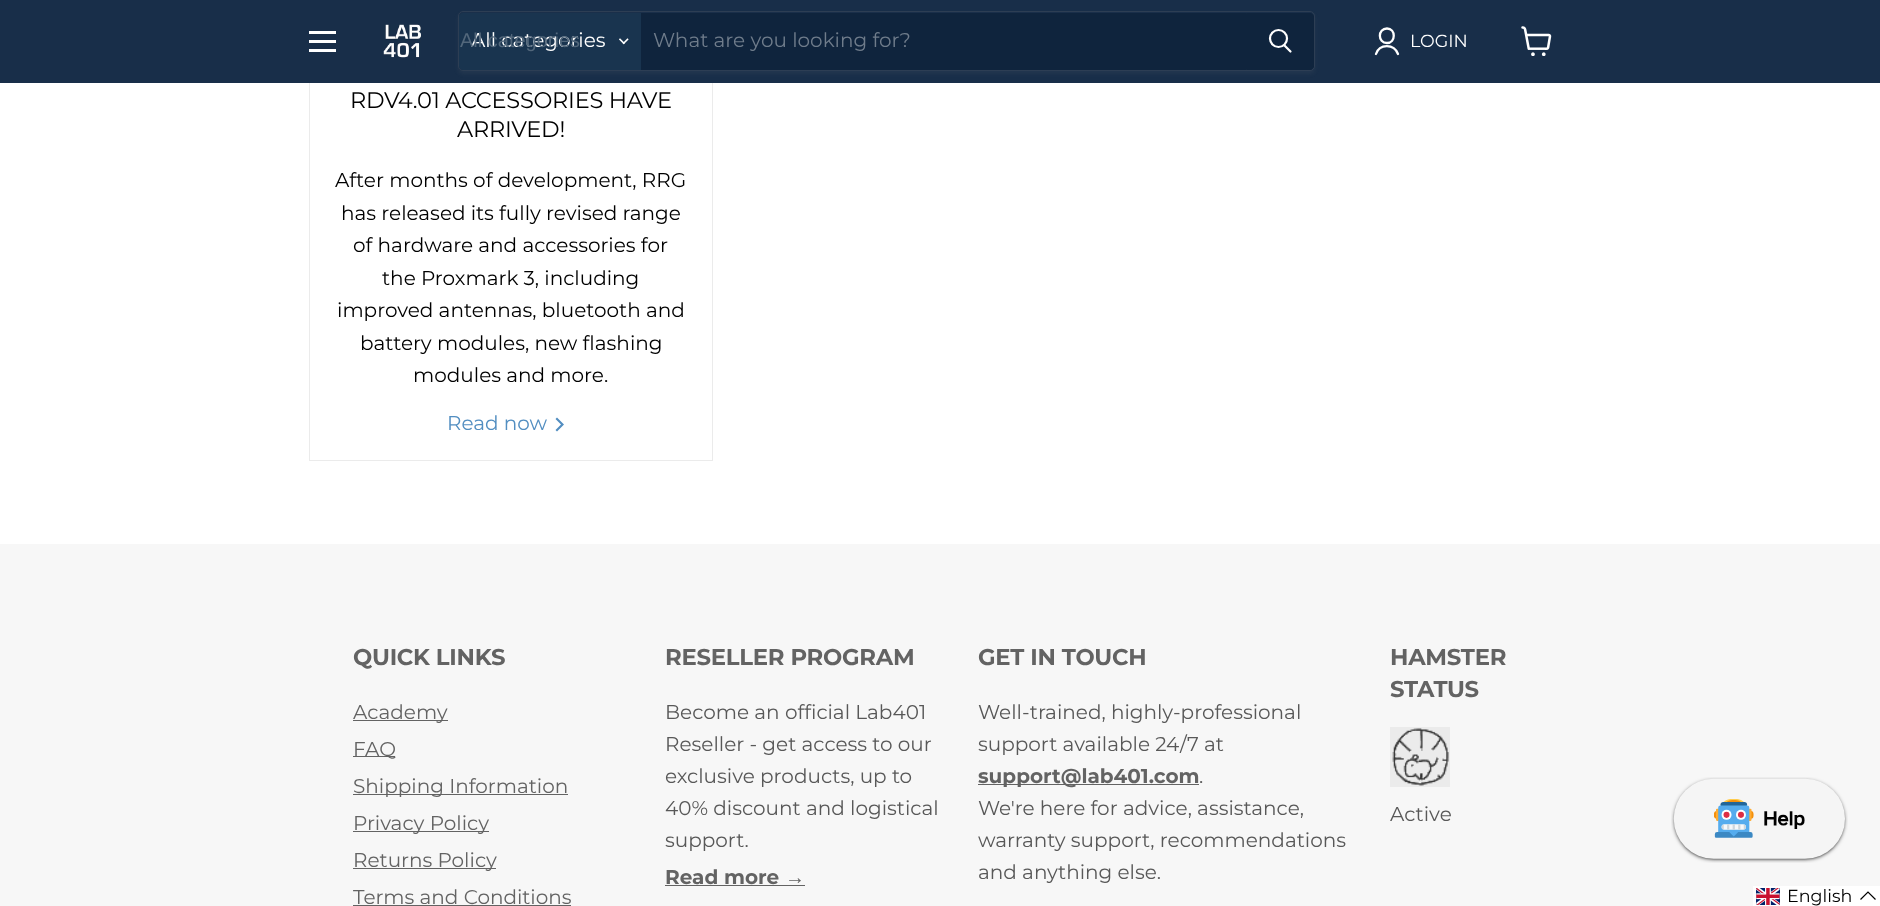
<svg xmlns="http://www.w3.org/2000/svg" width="1880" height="906">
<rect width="100%" height="100%" fill="#fff"/>
<rect x="309.5" y="-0.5" width="403" height="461" fill="none" stroke="#80808029"/>
<rect width="1880" height="83" fill="#182e49"/>
<rect x="309" y="31" width="27" height="3" fill="#fff"/>
<rect x="309" y="40" width="27" height="3" fill="#fff"/>
<rect x="309" y="49" width="27" height="3" fill="#fff"/>
<image x="383" y="24" width="38" height="34" href="media/1.png"/>
<rect x="458" y="14" width="857" height="60" rx="5" fill="#8080801c" filter="blur(2px)"/>
<rect x="458.5" y="11.5" width="856" height="59" rx="4.5" fill="none" stroke="#2d3e54"/>
<path d="M463 13h178v57h-178c-2 0-4-2-4-4v-49c0-2 2-4 4-4z" fill="#19344f"/>
<text x="471" y="47" style="font-family:Montserrat;font-size:20px;fill:#fff">All categories</text>
<text x="460" y="47" style="font-family:Liberation Sans;font-size:20px;fill:#52677b">All categories</text>
<image x="619" y="38" width="10" height="7" href="media/2.png"/>
<rect x="641" y="13" width="605" height="57" fill="#0f243d"/>
<text x="653" y="47" style="font-family:Montserrat;font-size:20px;fill:#6f7c8b">What are you looking for?</text>
<path d="M1246.5 13.5h63.5c2 0 3.5 1.5 3.5 3.5v49c0 2-1.5 3.5-3.5 3.5h-63.5z" fill="#0f243d" stroke="#0f243d"/>
<path d="M1290.5 51.5l-6-6" fill="none" stroke="#fff" stroke-width="2.2" stroke-linecap="round"/>
<circle cx="1278.5" cy="38.5" r="8.5" fill="none" stroke="#fff" stroke-width="2.2"/>
<path d="M1387 43c9 0 9-14.5 0-14.5c-9.5 0-9.5 14.5 0 14.5zm11 11c-4-10.5-18.5-10.5-22 0" fill="none" stroke="#fff" stroke-width="2.3" stroke-linecap="round" stroke-linejoin="round"/>
<text x="1410" y="47" style="font-family:Montserrat;font-size:17.5px;fill:#fff">LOGIN</text>
<image x="1521" y="26" width="31" height="30" href="media/3.png"/>
<text x="350" y="108" style="font-family:Montserrat;font-size:22.5px;letter-spacing:-0.25px;fill:#000">RDV4.01 ACCESSORIES HAVE</text>
<text x="457" y="137" style="font-family:Montserrat;font-size:22.5px;letter-spacing:-0.25px;fill:#000">ARRIVED!</text>
<text x="335" y="187" style="font-family:Montserrat;font-size:20px;fill:#000">After months of development, RRG</text>
<text x="341" y="220" style="font-family:Montserrat;font-size:20px;fill:#000">has released its fully revised range</text>
<text x="353" y="252" style="font-family:Montserrat;font-size:20px;fill:#000">of hardware and accessories for</text>
<text x="382" y="285" style="font-family:Montserrat;font-size:20px;fill:#000">the Proxmark 3, including</text>
<text x="337" y="317" style="font-family:Montserrat;font-size:20px;fill:#000">improved antennas, bluetooth and</text>
<text x="360" y="350" style="font-family:Montserrat;font-size:20px;fill:#000">battery modules, new flashing</text>
<text x="413" y="382" style="font-family:Montserrat;font-size:20px;fill:#000">modules and more.</text>
<text x="447" y="430" style="font-family:Montserrat;font-size:20px;fill:#528ec1">Read now</text>
<path d="M561 424.5l-5.5-5.5l1.5-1.5l7 7l-7 7l-1.5-1.5z" fill="#528ec1" fill-rule="evenodd"/>
<rect y="544" width="1880" height="362" fill="#f7f7f7"/>
<text x="353" y="665" style="font-family:Montserrat;font-size:22.75px;font-weight:bold;letter-spacing:-0.25px;fill:#636363">QUICK LINKS</text>
<rect x="353" y="720" width="95" height="1" fill="#636363"/>
<text x="353" y="719" style="font-family:Montserrat;font-size:20px;fill:#636363">Academy</text>
<rect x="353" y="756" width="42" height="1" fill="#636363"/>
<text x="353" y="756" style="font-family:Montserrat;font-size:20px;fill:#636363">FAQ</text>
<rect x="353" y="794" width="215" height="1" fill="#636363"/>
<text x="353" y="793" style="font-family:Montserrat;font-size:20px;fill:#636363">Shipping Information</text>
<rect x="353" y="831" width="136" height="1" fill="#636363"/>
<text x="353" y="830" style="font-family:Montserrat;font-size:20px;fill:#636363">Privacy Policy</text>
<rect x="353" y="868" width="143" height="1" fill="#636363"/>
<text x="353" y="867" style="font-family:Montserrat;font-size:20px;fill:#636363">Returns Policy</text>
<text x="353" y="904" style="font-family:Montserrat;font-size:20px;fill:#636363">Terms and Conditions</text>
<rect x="353" y="905" width="218" height="1" fill="#636363"/>
<text x="665" y="665" style="font-family:Montserrat;font-size:22.75px;font-weight:bold;letter-spacing:-0.25px;fill:#636363">RESELLER PROGRAM</text>
<text x="665" y="719" style="font-family:Montserrat;font-size:20px;fill:#585858">Become an official Lab401</text>
<text x="665" y="751" style="font-family:Montserrat;font-size:20px;fill:#585858">Reseller - get access to our</text>
<text x="665" y="783" style="font-family:Montserrat;font-size:20px;fill:#585858">exclusive products, up to</text>
<text x="665" y="815" style="font-family:Montserrat;font-size:20px;fill:#585858">40% discount and logistical</text>
<text x="665" y="847" style="font-family:Montserrat;font-size:20px;fill:#585858">support.</text>
<text x="665" y="884" style="font-family:Montserrat;font-size:20px;font-weight:bold;fill:#636363">Read more</text>
<text x="785" y="884" style="font-family:Liberation Sans;font-size:20px;font-weight:bold;fill:#636363">→</text>
<rect x="665" y="885" width="140" height="1" fill="#636363"/>
<text x="978" y="665" style="font-family:Montserrat;font-size:22.75px;font-weight:bold;letter-spacing:-0.25px;fill:#636363">GET IN TOUCH</text>
<text x="978" y="719" style="font-family:Montserrat;font-size:20px;fill:#585858">Well-trained, highly-professional</text>
<text x="978" y="751" style="font-family:Montserrat;font-size:20px;fill:#585858">support available 24/7 at</text>
<rect x="978" y="784" width="221" height="1" fill="#636363"/>
<text x="978" y="783" style="font-family:Montserrat;font-size:20px;font-weight:bold;fill:#636363">support@lab401.com</text>
<text x="1199" y="783" style="font-family:Montserrat;font-size:20px;fill:#585858">.</text>
<text x="978" y="815" style="font-family:Montserrat;font-size:20px;fill:#585858">We're here for advice, assistance,</text>
<text x="978" y="847" style="font-family:Montserrat;font-size:20px;fill:#585858">warranty support, recommendations</text>
<text x="978" y="879" style="font-family:Montserrat;font-size:20px;fill:#585858">and anything else.</text>
<text x="1390" y="665" style="font-family:Montserrat;font-size:22.75px;font-weight:bold;letter-spacing:-0.25px;fill:#636363">HAMSTER</text>
<text x="1390" y="697" style="font-family:Montserrat;font-size:22.75px;font-weight:bold;letter-spacing:-0.25px;fill:#636363">STATUS</text>
<image x="1390" y="727" width="60" height="60" href="media/4.png"/>
<text x="1390" y="821" style="font-family:Montserrat;font-size:20px;fill:#585858">Active</text>
<image x="1671" y="777" width="177" height="86" href="media/5.png"/>
<rect x="1753" y="886" width="127" height="20" fill="#fff"/>
<image x="1756" y="888" width="24" height="17" href="media/6.png"/>
<text x="1787" y="902" style="font-family:Montserrat;font-size:17.5px;fill:#000">English</text>
<path d="M1875.5 899.5l-7.5-7.5l-7.5 7.5" fill="none" stroke="#000" stroke-width="1.2"/>
</svg>
